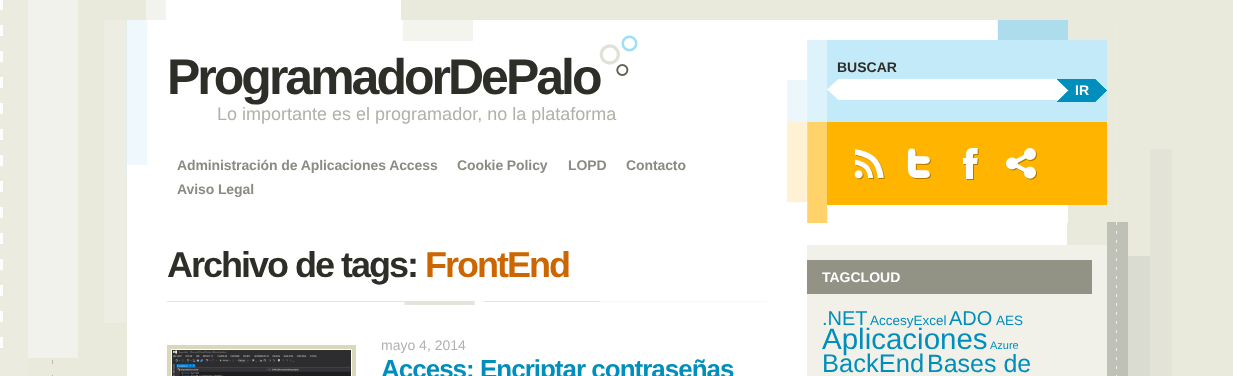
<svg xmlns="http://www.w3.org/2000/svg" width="1233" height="376">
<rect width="100%" height="100%" fill="#e9e9dc"/>
<image x="0" y="0" width="1172" height="376" href="media/1.png"/>
<rect x="127" y="20" width="940" height="356" fill="#fff"/>
<rect x="1106" y="222" width="1" height="23" fill="#e9e9dc"/>
<image x="127" y="20" width="346" height="145" href="media/2.png"/>
<image x="599" y="35" width="39" height="41" href="media/3.png"/>
<text x="167" y="94" style="font-family:Liberation Sans;font-size:50px;font-weight:bold;letter-spacing:-3px;fill:#2e2e29">ProgramadorDePalo</text>
<text x="217" y="120" style="font-family:Liberation Sans;font-size:18px;fill:#b0b1a8">Lo importante es el programador, no la plataforma</text>
<text x="177" y="170" style="font-family:Liberation Sans;font-size:14px;font-weight:bold;letter-spacing:-0.1px;fill:#8a8b82">Administración de Aplicaciones Access</text>
<text x="457" y="170" style="font-family:Liberation Sans;font-size:14px;font-weight:bold;letter-spacing:-0.1px;fill:#8a8b82">Cookie Policy</text>
<text x="568" y="170" style="font-family:Liberation Sans;font-size:14px;font-weight:bold;letter-spacing:-0.1px;fill:#8a8b82">LOPD</text>
<text x="626" y="170" style="font-family:Liberation Sans;font-size:14px;font-weight:bold;letter-spacing:-0.1px;fill:#8a8b82">Contacto</text>
<text x="177" y="194" style="font-family:Liberation Sans;font-size:14px;font-weight:bold;letter-spacing:-0.1px;fill:#8a8b82">Aviso Legal</text>
<image x="787" y="20" width="281" height="203" href="media/4.png"/>
<rect x="827" y="40" width="280" height="82" fill="#c3eaf8"/>
<text x="837" y="72" style="font-family:Liberation Sans;font-size:14px;font-weight:bold;fill:#2e2e29">BUSCAR</text>
<rect x="838" y="79" width="219" height="21" fill="#fff"/>
<image x="827" y="79" width="11" height="21" href="media/5.png"/>
<image x="1057" y="79" width="50" height="23" href="media/6.png"/>
<text x="1075" y="95" style="font-family:Liberation Sans;font-size:14px;font-weight:bold;fill:#fff">IR</text>
<rect x="827" y="122" width="280" height="83" fill="#ffb400"/>
<image x="854" y="149" width="31" height="31" href="media/7.png"/>
<image x="907" y="148" width="24" height="31" href="media/8.png"/>
<image x="963" y="148" width="16" height="32" href="media/9.png"/>
<image x="1006" y="148" width="31" height="32" href="media/10.png"/>
<image x="167" y="301" width="600" height="4" href="media/11.png"/>
<text x="167" y="277" style="font-family:Liberation Sans;font-size:36px;font-weight:bold;letter-spacing:-2px;fill:#2e2e29">Archivo de tags:</text>
<text x="425" y="277" style="font-family:Liberation Sans;font-size:36px;font-weight:bold;letter-spacing:-2px;fill:#c60">FrontEnd</text>
<rect x="169" y="347" width="185" height="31" fill="none" stroke="#d9d8bb" stroke-width="4"/>
<image x="172" y="350" width="179" height="26" href="media/12.png"/>
<text x="381" y="350" style="font-family:Liberation Sans;font-size:14px;fill:#b1b1b1">mayo 4, 2014</text>
<text x="381" y="378" style="font-family:Liberation Sans;font-size:26px;font-weight:bold;letter-spacing:-1px;fill:#008ebc">Access: Encriptar contraseñas</text>
<rect x="807" y="245" width="300" height="131" fill="#f1f1ea"/>
<rect x="807" y="260" width="285" height="34" fill="#929385"/>
<text x="822" y="282" style="font-family:Liberation Sans;font-size:14px;font-weight:bold;fill:#fff">TAGCLOUD</text>
<text x="822" y="325" style="font-family:Liberation Sans;font-size:20px;fill:#008ebc">.NET</text>
<text x="870" y="325" style="font-family:Liberation Sans;font-size:13.5px;fill:#008ebc">AccesyExcel</text>
<text x="949" y="325" style="font-family:Liberation Sans;font-size:20px;fill:#008ebc">ADO</text>
<text x="996" y="325" style="font-family:Liberation Sans;font-size:13.5px;fill:#008ebc">AES</text>
<text x="822" y="349" style="font-family:Liberation Sans;font-size:29.5px;fill:#008ebc">Aplicaciones</text>
<text x="990" y="349" style="font-family:Liberation Sans;font-size:11px;fill:#008ebc">Azure</text>
<text x="822" y="372" style="font-family:Liberation Sans;font-size:25.5px;fill:#008ebc">BackEnd</text>
<text x="927" y="372" style="font-family:Liberation Sans;font-size:25px;fill:#008ebc">Bases de</text>
</svg>
